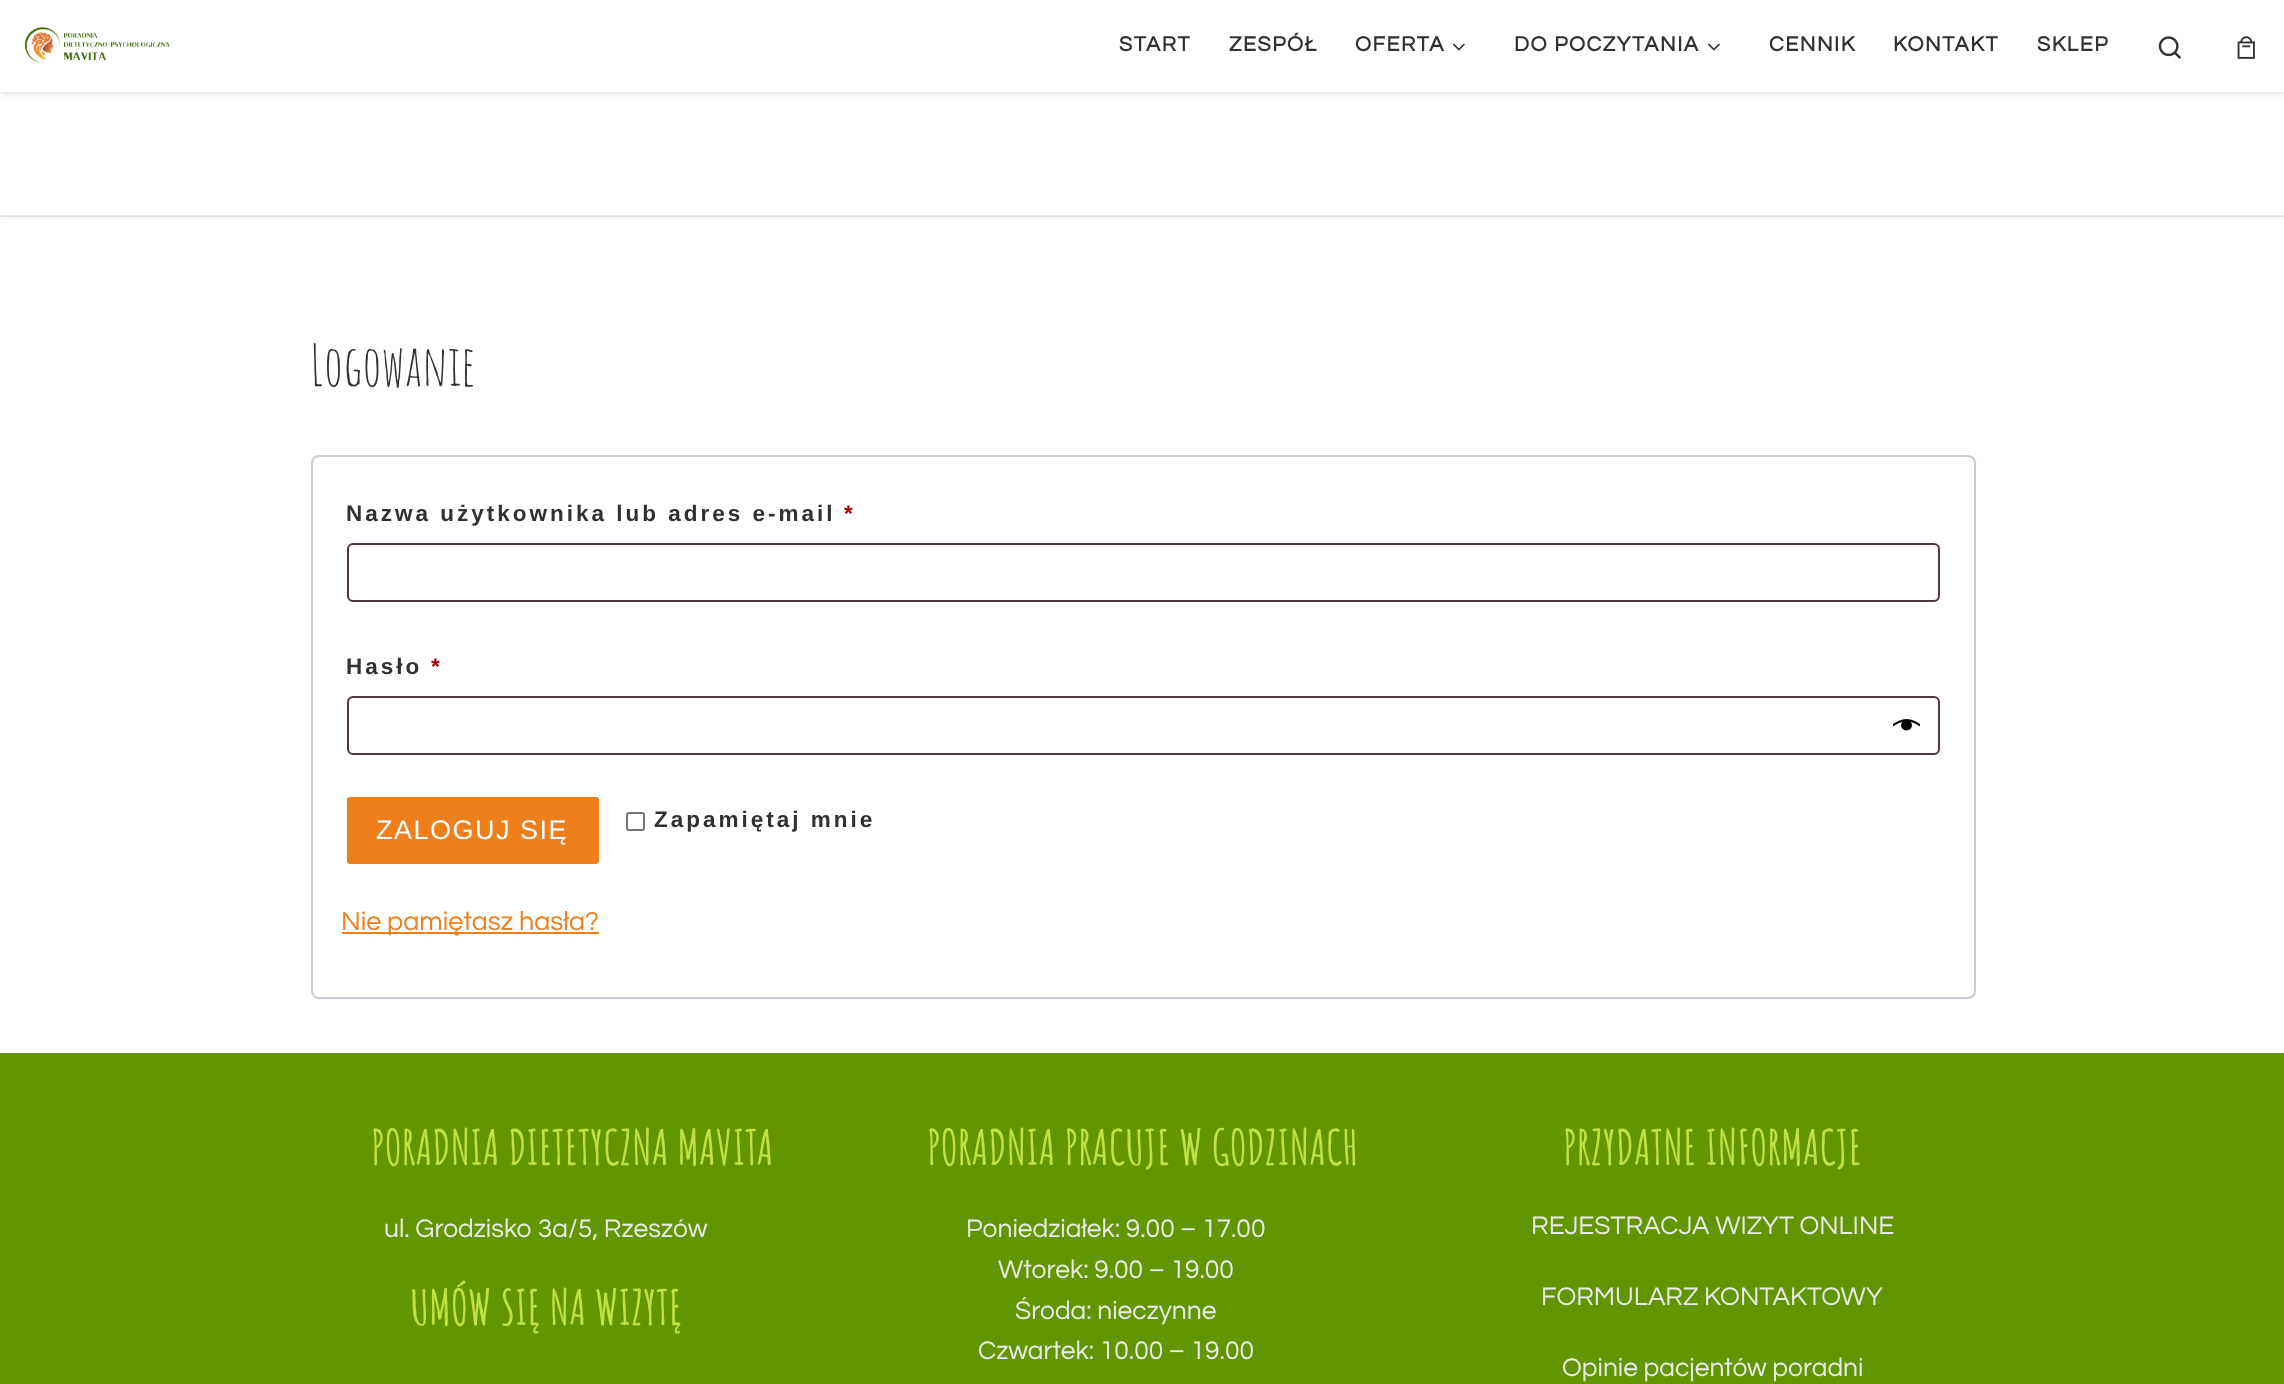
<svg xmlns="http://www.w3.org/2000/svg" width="2284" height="1384">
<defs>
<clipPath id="clip1"><rect x="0" y="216" width="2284" height="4"/></clipPath>
<clipPath id="clip2"><path d="M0 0h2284v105h-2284zm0 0h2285v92h-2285z" clip-rule="evenodd"/></clipPath>
</defs>
<rect width="100%" height="100%" fill="#fff"/>
<g clip-path="url(#clip1)">
<rect y="-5" width="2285" height="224" fill="#66666614" filter="blur(1.5px)"/>
</g>
<rect y="215" width="2284" height="2" fill="#31313117"/>
<g clip-path="url(#clip2)">
<rect width="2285" height="92" fill="#00000033" filter="blur(4px)"/>
</g>
<rect y="91" width="2284" height="1" fill="#ffffffe6"/>
<image x="24" y="27" width="146" height="36" href="media/1.png"/>
<text x="1119" y="51" style="font-family:Questrial;font-size:21.4px;font-weight:bold;letter-spacing:1.5px;fill:#303133">START</text>
<text x="1229" y="51" style="font-family:Questrial;font-size:21.4px;font-weight:bold;letter-spacing:1.5px;fill:#303133">ZESPÓŁ</text>
<text x="1355" y="51" style="font-family:Questrial;font-size:21.4px;font-weight:bold;letter-spacing:1.5px;fill:#303133">OFERTA</text>
<image x="1453" y="43" width="12" height="8" href="media/2.png"/>
<text x="1514" y="51" style="font-family:Questrial;font-size:21.4px;font-weight:bold;letter-spacing:1.5px;fill:#303133">DO POCZYTANIA</text>
<image x="1708" y="43" width="12" height="8" href="media/2.png"/>
<text x="1769" y="51" style="font-family:Questrial;font-size:21.4px;font-weight:bold;letter-spacing:1.5px;fill:#303133">CENNIK</text>
<text x="1893" y="51" style="font-family:Questrial;font-size:21.4px;font-weight:bold;letter-spacing:1.5px;fill:#303133">KONTAKT</text>
<text x="2037" y="51" style="font-family:Questrial;font-size:21.4px;font-weight:bold;letter-spacing:1.5px;fill:#303133">SKLEP</text>
<image x="2158" y="36" width="24" height="23" href="media/3.png"/>
<image x="2237" y="36" width="18" height="23" href="media/4.png"/>
<text x="310" y="386" style="font-family:Amatic SC;font-size:56px;fill:#303133">Logowanie</text>
<rect x="312" y="456" width="1663" height="542" rx="7" fill="none" stroke="#cfc8d8" stroke-width="2"/>
<text x="346" y="521" style="font-family:Liberation Sans;font-size:22.5px;font-weight:bold;letter-spacing:3px;fill:#303133">Nazwa użytkownika lub adres e-mail</text>
<text x="844" y="521" style="font-family:Liberation Sans;font-size:22.5px;font-weight:bold;letter-spacing:3px;fill:#a00">*</text>
<path d="M352 548h1582c2 0 4 2 4 4c0-3-1-7-5-7h-1580c-4 0-5 4-5 7c0-2 2-4 4-4z" fill="#f9f9f9"/>
<rect x="348" y="544" width="1591" height="57" rx="5" fill="none" stroke="#200707cc" stroke-width="2"/>
<text x="346" y="674" style="font-family:Liberation Sans;font-size:22.5px;font-weight:bold;letter-spacing:3px;fill:#303133">Hasło</text>
<text x="431" y="674" style="font-family:Liberation Sans;font-size:22.5px;font-weight:bold;letter-spacing:3px;fill:#a00">*</text>
<path d="M352 700h1582c2 0 4 3 4 5c0-3-1-7-5-7h-1580c-4 0-5 4-5 7c0-2 2-5 4-5z" fill="#f9f9f9"/>
<rect x="348" y="697" width="1591" height="57" rx="5" fill="none" stroke="#200707cc" stroke-width="2"/>
<image x="1893" y="719" width="27" height="12" href="media/5.png"/>
<rect x="348.5" y="798.5" width="249" height="64" rx="1.5" fill="#ee7f1b" stroke="#ee7f1b" stroke-width="3"/>
<text x="376" y="839" style="font-family:Liberation Sans;font-size:27px;letter-spacing:1.5px;fill:#fff">ZALOGUJ SIĘ</text>
<rect x="627" y="813" width="17" height="17" rx="2" fill="none" stroke="#767676" stroke-width="2"/>
<text x="654" y="827" style="font-family:Liberation Sans;font-size:22.5px;font-weight:bold;letter-spacing:3px;fill:#303133">Zapamiętaj mnie</text>
<rect x="342" y="932" width="257" height="2" fill="#ee7f1b"/>
<text x="341" y="930" style="font-family:Questrial;font-size:27px;fill:#ee7f1b">Nie pamiętasz hasła?</text>
<rect y="1053" width="2284" height="331" fill="#639500"/>
<text x="371" y="1165" style="font-family:Amatic SC;font-size:48px;font-weight:bold;fill:#c0e043">PORADNIA DIETETYCZNA MAVITA</text>
<text x="384" y="1237" style="font-family:Questrial;font-size:26.4px;fill:#eaeaea">ul. Grodzisko 3a/5, Rzeszów</text>
<text x="410" y="1325" style="font-family:Amatic SC;font-size:48px;font-weight:bold;fill:#c0e043">UMÓW SIĘ NA WIZYTĘ</text>
<text x="927" y="1165" style="font-family:Amatic SC;font-size:48px;font-weight:bold;fill:#c0e043">PORADNIA PRACUJE W GODZINACH</text>
<text x="966" y="1237" style="font-family:Questrial;font-size:26.4px;fill:#eaeaea">Poniedziałek: 9.00 – 17.00</text>
<text x="998" y="1278" style="font-family:Questrial;font-size:26.4px;fill:#eaeaea">Wtorek: 9.00 – 19.00</text>
<text x="1015" y="1319" style="font-family:Questrial;font-size:26.4px;fill:#eaeaea">Środa: nieczynne</text>
<text x="978" y="1359" style="font-family:Questrial;font-size:26.4px;fill:#eaeaea">Czwartek: 10.00 – 19.00</text>
<text x="1563" y="1165" style="font-family:Amatic SC;font-size:48px;font-weight:bold;fill:#c0e043">PRZYDATNE INFORMACJE</text>
<text x="1531" y="1234" style="font-family:Questrial;font-size:26.4px;fill:#eaeaea">REJESTRACJA WIZYT ONLINE</text>
<text x="1541" y="1305" style="font-family:Questrial;font-size:26.4px;fill:#eaeaea">FORMULARZ KONTAKTOWY</text>
<text x="1562" y="1376" style="font-family:Questrial;font-size:26.4px;fill:#eaeaea">Opinie pacjentów poradni</text>
</svg>
